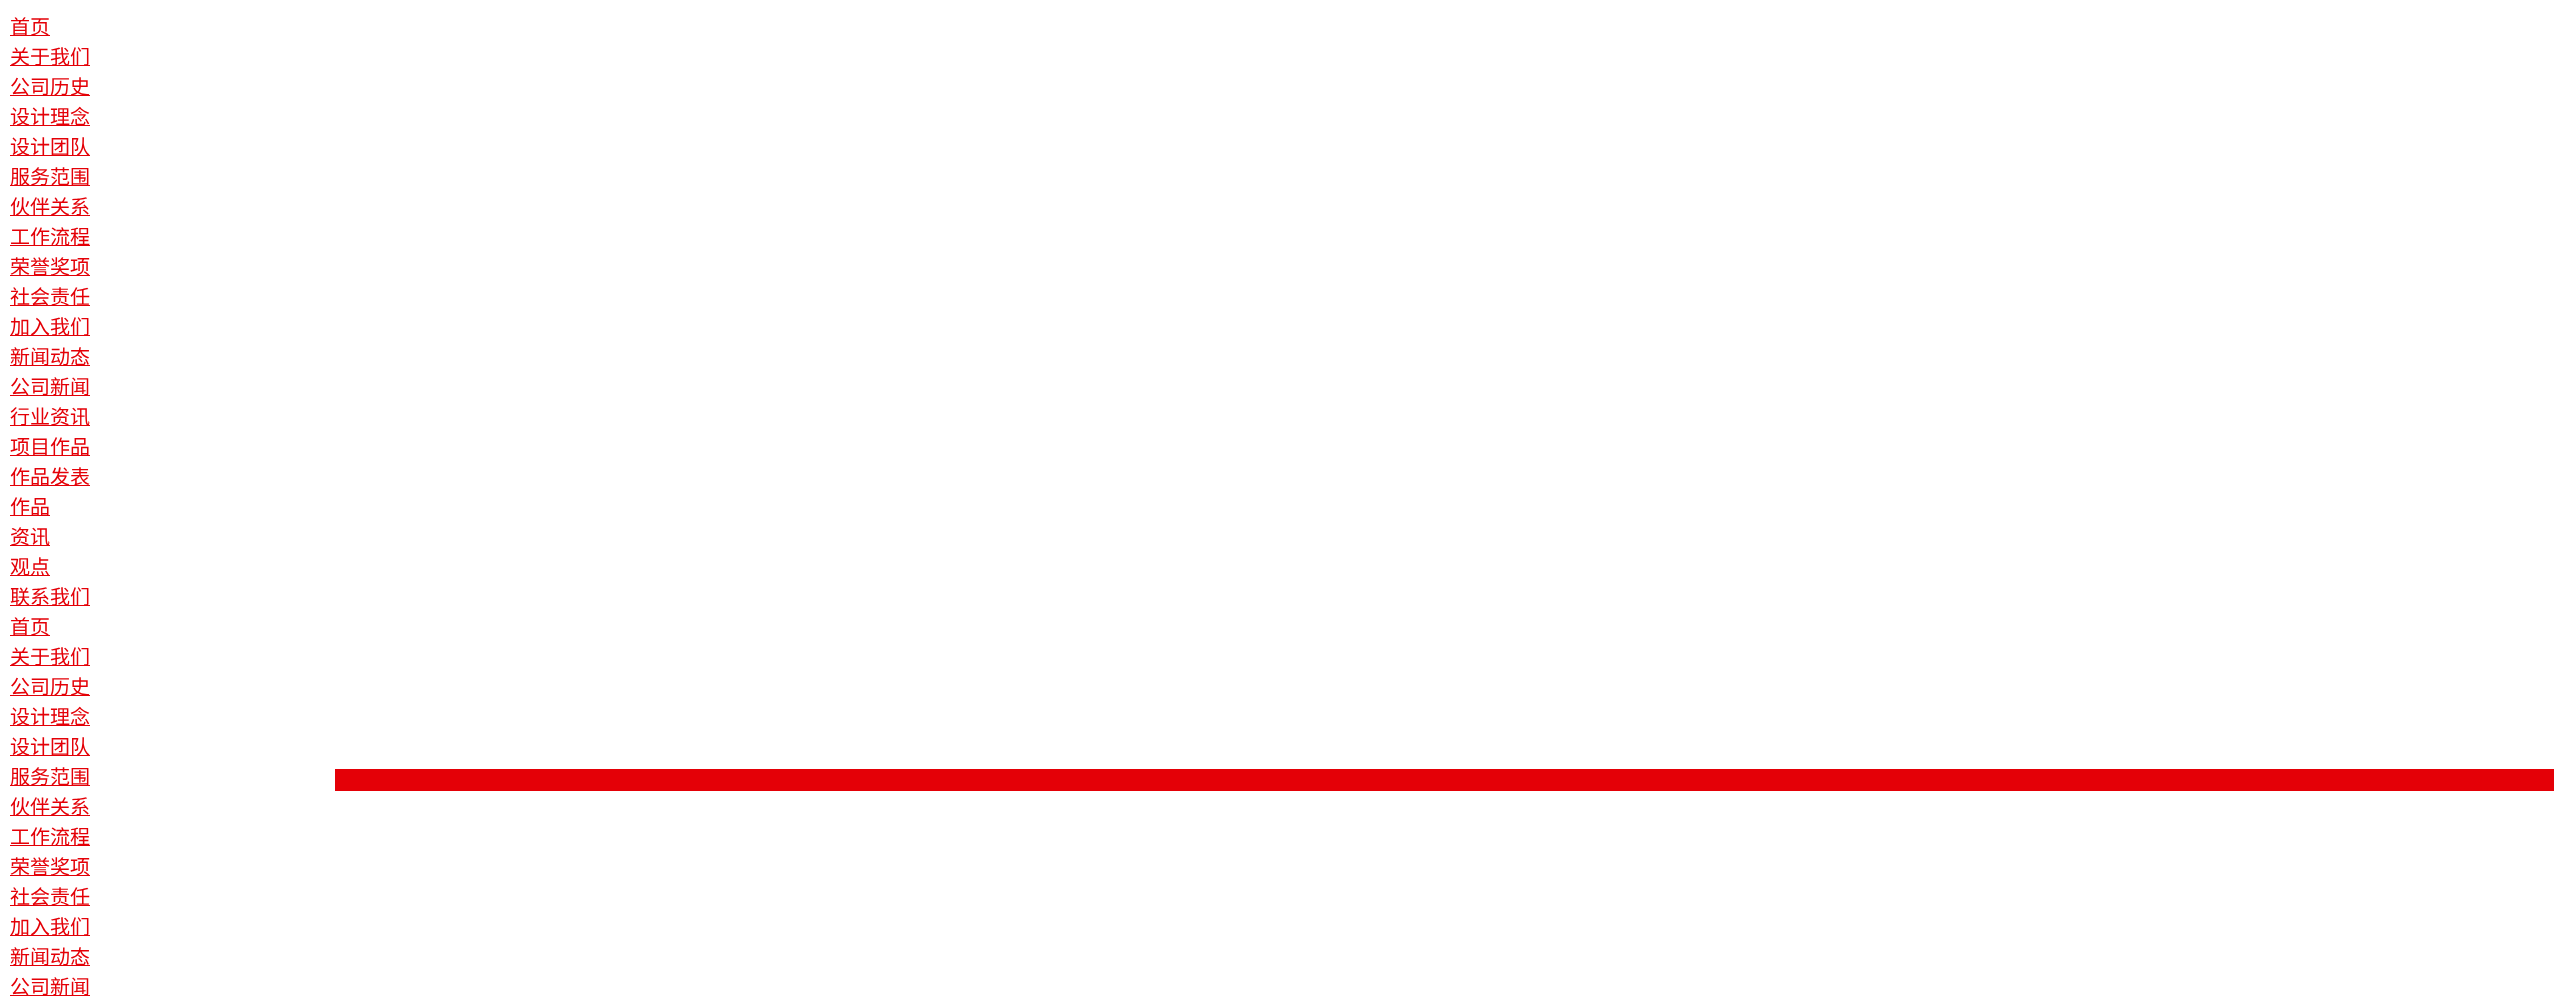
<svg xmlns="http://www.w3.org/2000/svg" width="2563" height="997">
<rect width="100%" height="100%" fill="#fff"/>
<rect x="10" y="35" width="40" height="1" fill="#e40007"/>
<text x="10" y="34" style="font-family:Noto Sans CJK SC;font-size:20px;fill:#e40007">首页</text>
<rect x="10" y="65" width="80" height="1" fill="#e40007"/>
<text x="10" y="64" style="font-family:Noto Sans CJK SC;font-size:20px;fill:#e40007">关于我们</text>
<rect x="10" y="95" width="80" height="1" fill="#e40007"/>
<text x="10" y="94" style="font-family:Noto Sans CJK SC;font-size:20px;fill:#e40007">公司历史</text>
<rect x="10" y="125" width="80" height="1" fill="#e40007"/>
<text x="10" y="124" style="font-family:Noto Sans CJK SC;font-size:20px;fill:#e40007">设计理念</text>
<rect x="10" y="155" width="80" height="1" fill="#e40007"/>
<text x="10" y="154" style="font-family:Noto Sans CJK SC;font-size:20px;fill:#e40007">设计团队</text>
<rect x="10" y="185" width="80" height="1" fill="#e40007"/>
<text x="10" y="184" style="font-family:Noto Sans CJK SC;font-size:20px;fill:#e40007">服务范围</text>
<rect x="10" y="215" width="80" height="1" fill="#e40007"/>
<text x="10" y="214" style="font-family:Noto Sans CJK SC;font-size:20px;fill:#e40007">伙伴关系</text>
<rect x="10" y="245" width="80" height="1" fill="#e40007"/>
<text x="10" y="244" style="font-family:Noto Sans CJK SC;font-size:20px;fill:#e40007">工作流程</text>
<rect x="10" y="275" width="80" height="1" fill="#e40007"/>
<text x="10" y="274" style="font-family:Noto Sans CJK SC;font-size:20px;fill:#e40007">荣誉奖项</text>
<rect x="10" y="305" width="80" height="1" fill="#e40007"/>
<text x="10" y="304" style="font-family:Noto Sans CJK SC;font-size:20px;fill:#e40007">社会责任</text>
<rect x="10" y="335" width="80" height="1" fill="#e40007"/>
<text x="10" y="334" style="font-family:Noto Sans CJK SC;font-size:20px;fill:#e40007">加入我们</text>
<rect x="10" y="365" width="80" height="1" fill="#e40007"/>
<text x="10" y="364" style="font-family:Noto Sans CJK SC;font-size:20px;fill:#e40007">新闻动态</text>
<rect x="10" y="395" width="80" height="1" fill="#e40007"/>
<text x="10" y="394" style="font-family:Noto Sans CJK SC;font-size:20px;fill:#e40007">公司新闻</text>
<rect x="10" y="425" width="80" height="1" fill="#e40007"/>
<text x="10" y="424" style="font-family:Noto Sans CJK SC;font-size:20px;fill:#e40007">行业资讯</text>
<rect x="10" y="455" width="80" height="1" fill="#e40007"/>
<text x="10" y="454" style="font-family:Noto Sans CJK SC;font-size:20px;fill:#e40007">项目作品</text>
<rect x="10" y="485" width="80" height="1" fill="#e40007"/>
<text x="10" y="484" style="font-family:Noto Sans CJK SC;font-size:20px;fill:#e40007">作品发表</text>
<rect x="10" y="515" width="40" height="1" fill="#e40007"/>
<text x="10" y="514" style="font-family:Noto Sans CJK SC;font-size:20px;fill:#e40007">作品</text>
<rect x="10" y="545" width="40" height="1" fill="#e40007"/>
<text x="10" y="544" style="font-family:Noto Sans CJK SC;font-size:20px;fill:#e40007">资讯</text>
<rect x="10" y="575" width="40" height="1" fill="#e40007"/>
<text x="10" y="574" style="font-family:Noto Sans CJK SC;font-size:20px;fill:#e40007">观点</text>
<rect x="10" y="605" width="80" height="1" fill="#e40007"/>
<text x="10" y="604" style="font-family:Noto Sans CJK SC;font-size:20px;fill:#e40007">联系我们</text>
<rect x="10" y="635" width="40" height="1" fill="#e40007"/>
<text x="10" y="634" style="font-family:Noto Sans CJK SC;font-size:20px;fill:#e40007">首页</text>
<rect x="10" y="665" width="80" height="1" fill="#e40007"/>
<text x="10" y="664" style="font-family:Noto Sans CJK SC;font-size:20px;fill:#e40007">关于我们</text>
<rect x="10" y="695" width="80" height="1" fill="#e40007"/>
<text x="10" y="694" style="font-family:Noto Sans CJK SC;font-size:20px;fill:#e40007">公司历史</text>
<rect x="10" y="725" width="80" height="1" fill="#e40007"/>
<text x="10" y="724" style="font-family:Noto Sans CJK SC;font-size:20px;fill:#e40007">设计理念</text>
<rect x="10" y="755" width="80" height="1" fill="#e40007"/>
<text x="10" y="754" style="font-family:Noto Sans CJK SC;font-size:20px;fill:#e40007">设计团队</text>
<rect x="10" y="785" width="80" height="1" fill="#e40007"/>
<text x="10" y="784" style="font-family:Noto Sans CJK SC;font-size:20px;fill:#e40007">服务范围</text>
<rect x="10" y="815" width="80" height="1" fill="#e40007"/>
<text x="10" y="814" style="font-family:Noto Sans CJK SC;font-size:20px;fill:#e40007">伙伴关系</text>
<rect x="10" y="845" width="80" height="1" fill="#e40007"/>
<text x="10" y="844" style="font-family:Noto Sans CJK SC;font-size:20px;fill:#e40007">工作流程</text>
<rect x="10" y="875" width="80" height="1" fill="#e40007"/>
<text x="10" y="874" style="font-family:Noto Sans CJK SC;font-size:20px;fill:#e40007">荣誉奖项</text>
<rect x="10" y="905" width="80" height="1" fill="#e40007"/>
<text x="10" y="904" style="font-family:Noto Sans CJK SC;font-size:20px;fill:#e40007">社会责任</text>
<rect x="10" y="935" width="80" height="1" fill="#e40007"/>
<text x="10" y="934" style="font-family:Noto Sans CJK SC;font-size:20px;fill:#e40007">加入我们</text>
<rect x="10" y="965" width="80" height="1" fill="#e40007"/>
<text x="10" y="964" style="font-family:Noto Sans CJK SC;font-size:20px;fill:#e40007">新闻动态</text>
<rect x="10" y="995" width="80" height="1" fill="#e40007"/>
<text x="10" y="994" style="font-family:Noto Sans CJK SC;font-size:20px;fill:#e40007">公司新闻</text>
<rect x="335" y="769" width="2219" height="22" fill="#e40007"/>
</svg>
